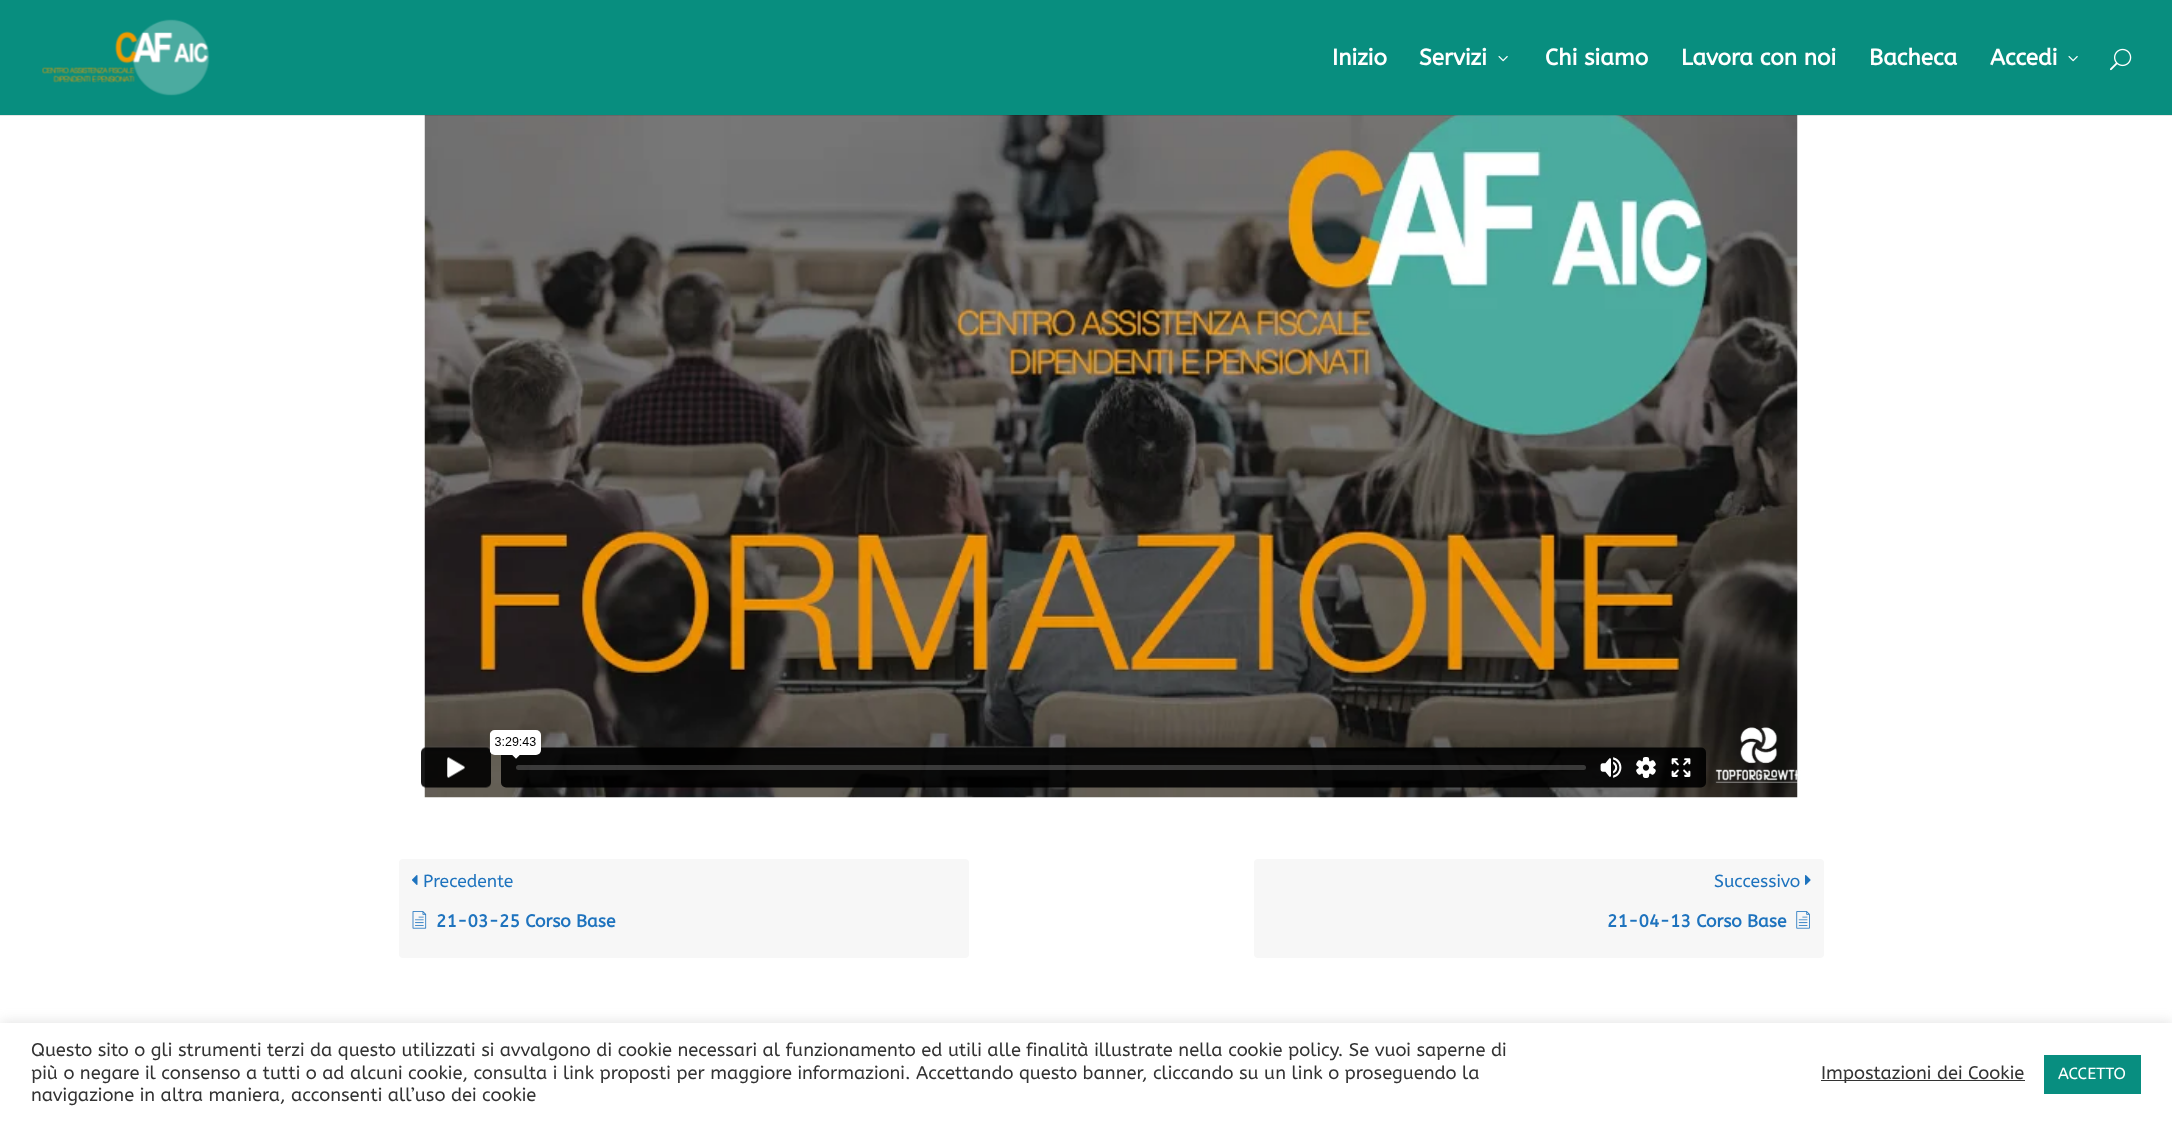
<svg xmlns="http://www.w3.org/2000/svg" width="2172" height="1125">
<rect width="100%" height="100%" fill="#fff"/>
<image x="421" y="115" width="1380" height="683" href="media/4.png"/>
<path d="M0 115v1h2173v-115h-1v114z" fill="#0000001a"/>
<rect width="2172" height="115" fill="#088e7f"/>
<image x="42" y="19" width="168" height="77" href="media/1.png"/>
<text x="1332" y="65" style="font-family:ABeeZee;font-size:22.5px;font-weight:bold;fill:#fff">Inizio</text>
<text x="1419" y="65" style="font-family:ABeeZee;font-size:22.5px;font-weight:bold;fill:#fff">Servizi</text>
<image x="1498" y="56" width="10" height="6" href="media/2.png"/>
<text x="1545" y="65" style="font-family:ABeeZee;font-size:22.5px;font-weight:bold;fill:#fff">Chi siamo</text>
<text x="1681" y="65" style="font-family:ABeeZee;font-size:22.5px;font-weight:bold;fill:#fff">Lavora con noi</text>
<text x="1869" y="65" style="font-family:ABeeZee;font-size:22.5px;font-weight:bold;fill:#fff">Bacheca</text>
<text x="1990" y="65" style="font-family:ABeeZee;font-size:22.5px;font-weight:bold;fill:#fff">Accedi</text>
<image x="2068" y="56" width="10" height="6" href="media/2.png"/>
<image x="2110" y="48" width="22" height="23" href="media/3.png"/>
<rect x="399" y="859" width="570" height="99" rx="4" fill="#f7f7f7"/>
<image x="412" y="875" width="6" height="10" href="media/5.png"/>
<text x="423" y="887" style="font-family:ABeeZee;font-size:17.5px;fill:#1e73be">Precedente</text>
<image x="412" y="911" width="15" height="18" href="media/6.png"/>
<text x="436" y="927" style="font-family:ABeeZee;font-size:17.5px;font-weight:bold;fill:#1e73be">21-03-25 Corso Base</text>
<rect x="1254" y="859" width="570" height="99" rx="4" fill="#f7f7f7"/>
<text x="1714" y="887" style="font-family:ABeeZee;font-size:17.5px;fill:#1e73be">Successivo</text>
<image x="1805" y="875" width="6" height="10" href="media/7.png"/>
<text x="1607" y="927" style="font-family:ABeeZee;font-size:17.5px;font-weight:bold;fill:#1e73be">21-04-13 Corso Base</text>
<image x="1796" y="911" width="14" height="18" href="media/8.png"/>
<rect y="1021" width="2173" height="103" fill="#acabab4d" filter="blur(6px)"/>
<rect y="1023" width="2172" height="102" fill="#fff"/>
<text x="31" y="1056" style="font-family:ABeeZee;font-size:18.33px;fill:#333">Questo sito o gli strumenti terzi da questo utilizzati si avvalgono di cookie necessari al funzionamento ed utili alle finalità illustrate nella cookie policy. Se vuoi saperne di</text>
<text x="31" y="1079" style="font-family:ABeeZee;font-size:18.33px;fill:#333">più o negare il consenso a tutti o ad alcuni cookie, consulta i link proposti per maggiore informazioni. Accettando questo banner, cliccando su un link o proseguendo la</text>
<text x="31" y="1101" style="font-family:ABeeZee;font-size:18.33px;fill:#333">navigazione in altra maniera, acconsenti all’uso dei cookie</text>
<rect x="1821" y="1080" width="204" height="1" fill="#333"/>
<text x="1821" y="1079" style="font-family:ABeeZee;font-size:18.33px;fill:#333">Impostazioni dei Cookie</text>
<rect x="2044" y="1055" width="97" height="39" fill="#088e80"/>
<text x="2058" y="1079" style="font-family:ABeeZee;font-size:16.25px;fill:#fff">ACCETTO</text>
</svg>
